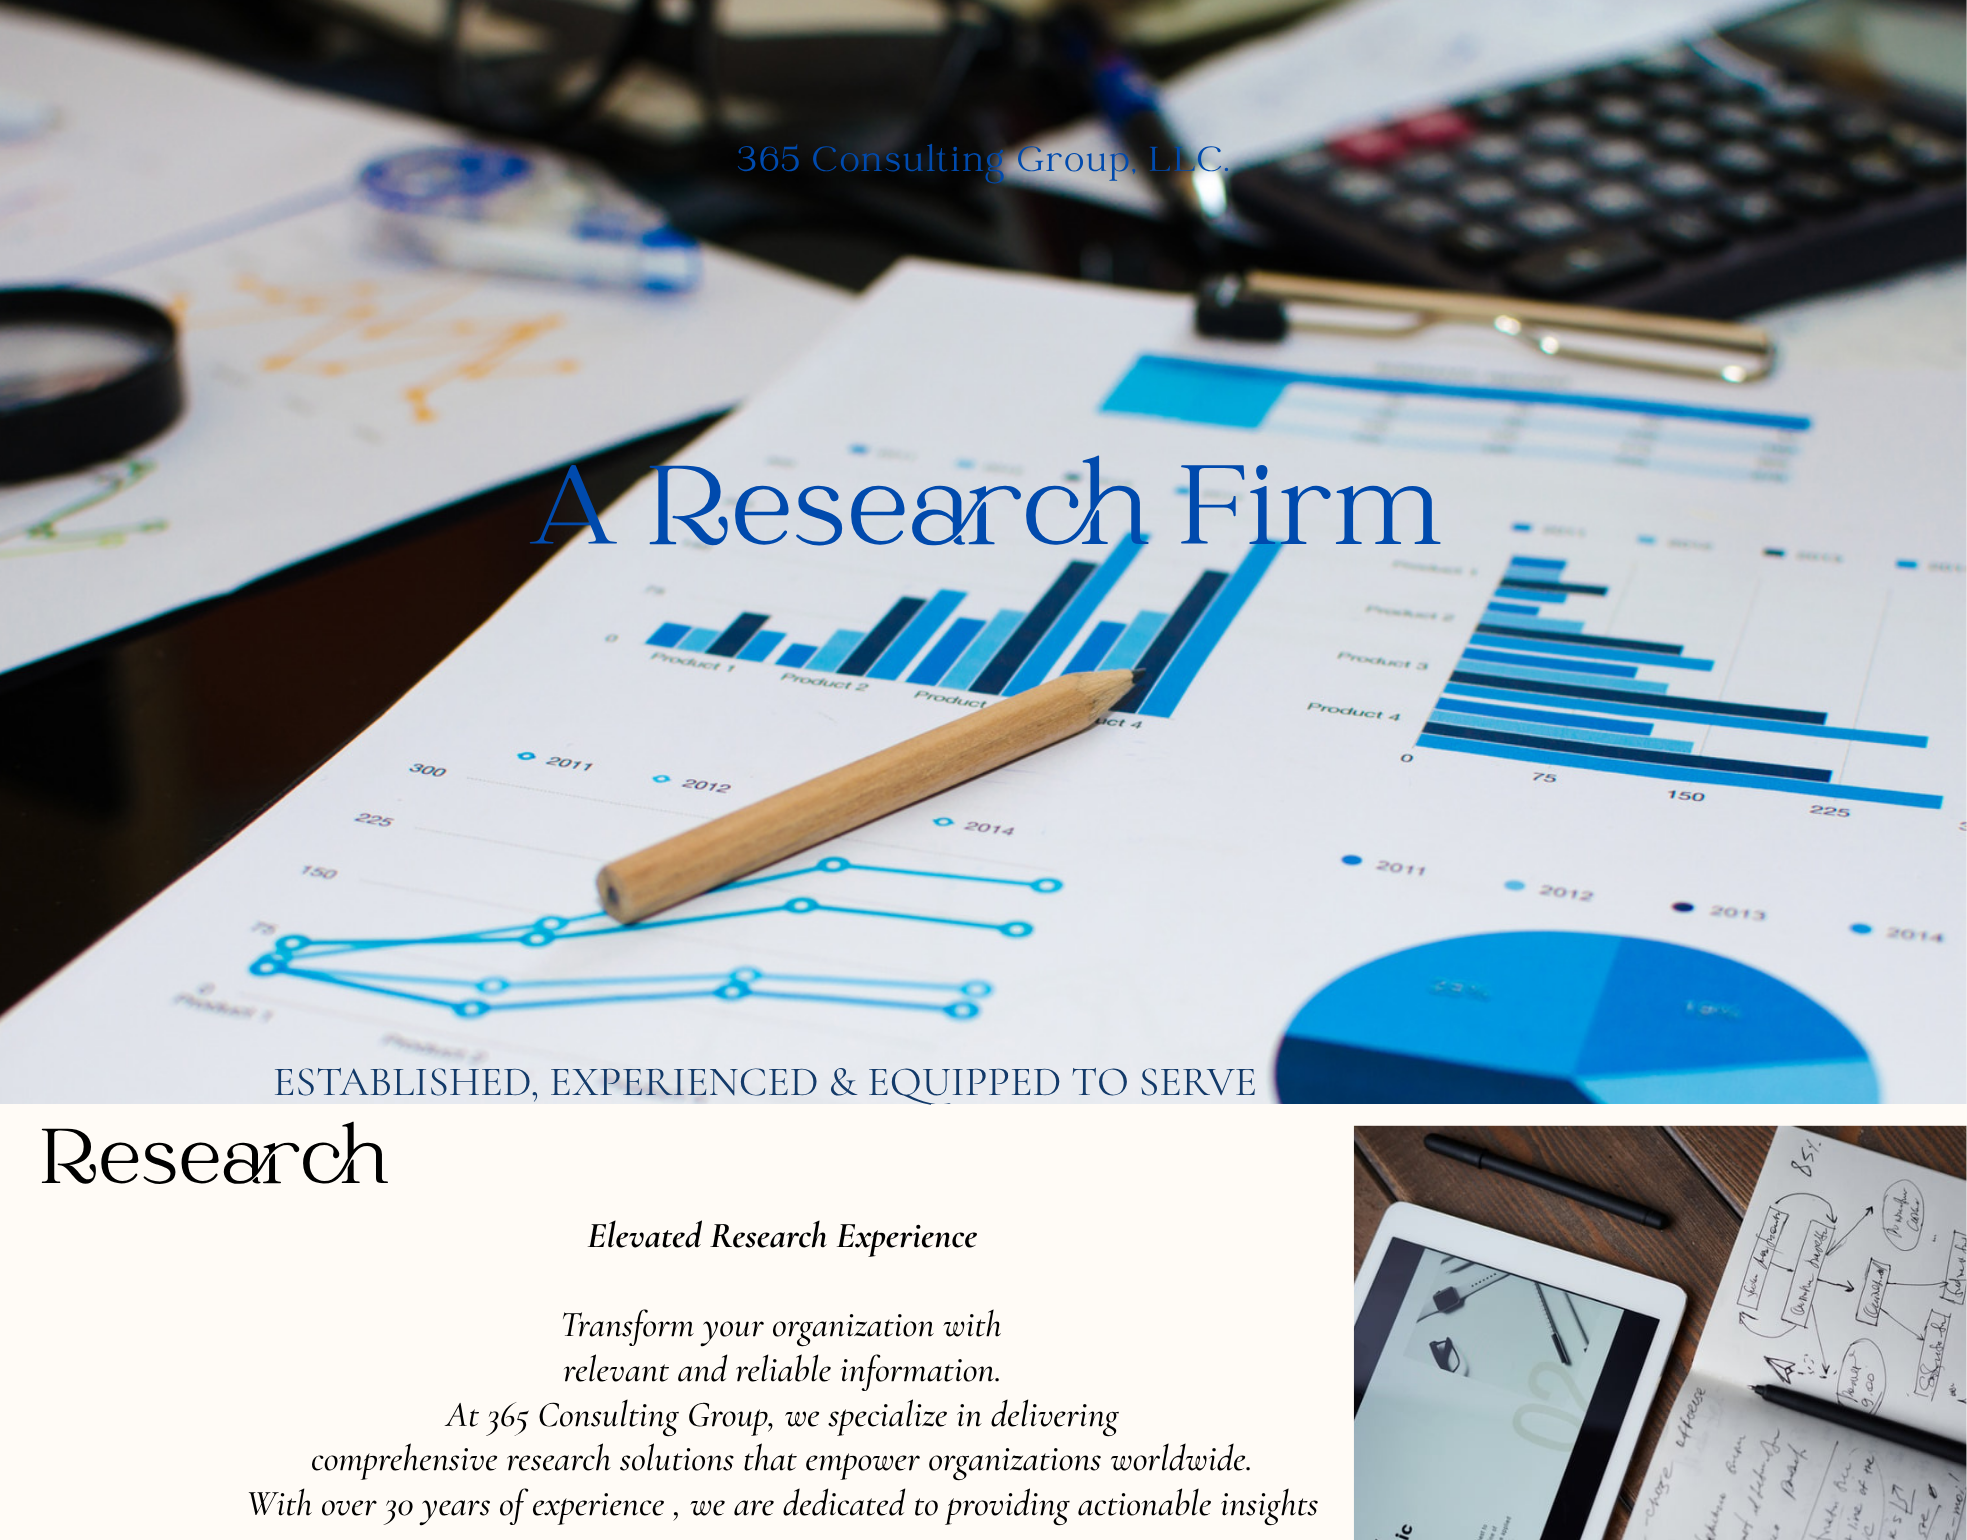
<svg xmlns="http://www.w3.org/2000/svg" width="1967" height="1540">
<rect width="100%" height="100%" fill="#fffbf6"/>
<image x="0" y="0" width="1967" height="1104" href="media/1.png"/>
<text x="737" y="171" style="font-family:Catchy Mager;font-size:38.4px;letter-spacing:2.1px;fill:#004aad">365 Consulting Group, LLC.</text>
<text x="527" y="544" style="font-family:Catchy Mager;font-size:124.75px;fill:#004aad">A Research Firm</text>
<text x="273" y="1095" style="font-family:Cormorant Garamond;font-size:41.75px;fill:#133a69">ESTABLISHED, EXPERIENCED &amp; EQUIPPED TO SERVE</text>
<rect x="931" y="1104" width="22" height="2" fill="#fffbf6"/>
<text x="40" y="1183" style="font-family:Catchy Mager;font-size:86.5px;fill:#000">Research</text>
<text x="587" y="1247" style="font-family:Cormorant Garamond;font-size:36.5px;font-weight:bold;font-style:italic;fill:#000">Elevated Research Experience</text>
<text x="560" y="1336" style="font-family:Cormorant Garamond;font-size:36.5px;font-weight:500;font-style:italic;fill:#000">Transform your organization with</text>
<text x="563" y="1381" style="font-family:Cormorant Garamond;font-size:36.5px;font-weight:500;font-style:italic;fill:#000">relevant and reliable information.</text>
<text x="446" y="1426" style="font-family:Cormorant Garamond;font-size:36.5px;font-weight:500;font-style:italic;fill:#000">At 365 Consulting Group, we specialize in delivering</text>
<text x="311" y="1470" style="font-family:Cormorant Garamond;font-size:36.5px;font-weight:500;font-style:italic;fill:#000">comprehensive research solutions that empower organizations worldwide.</text>
<text x="246" y="1515" style="font-family:Cormorant Garamond;font-size:36.5px;font-weight:500;font-style:italic;fill:#000">With over 30 years of experience , we are dedicated to providing actionable insights</text>
<image x="1353" y="1125" width="614" height="415" href="media/2.png"/>
</svg>
